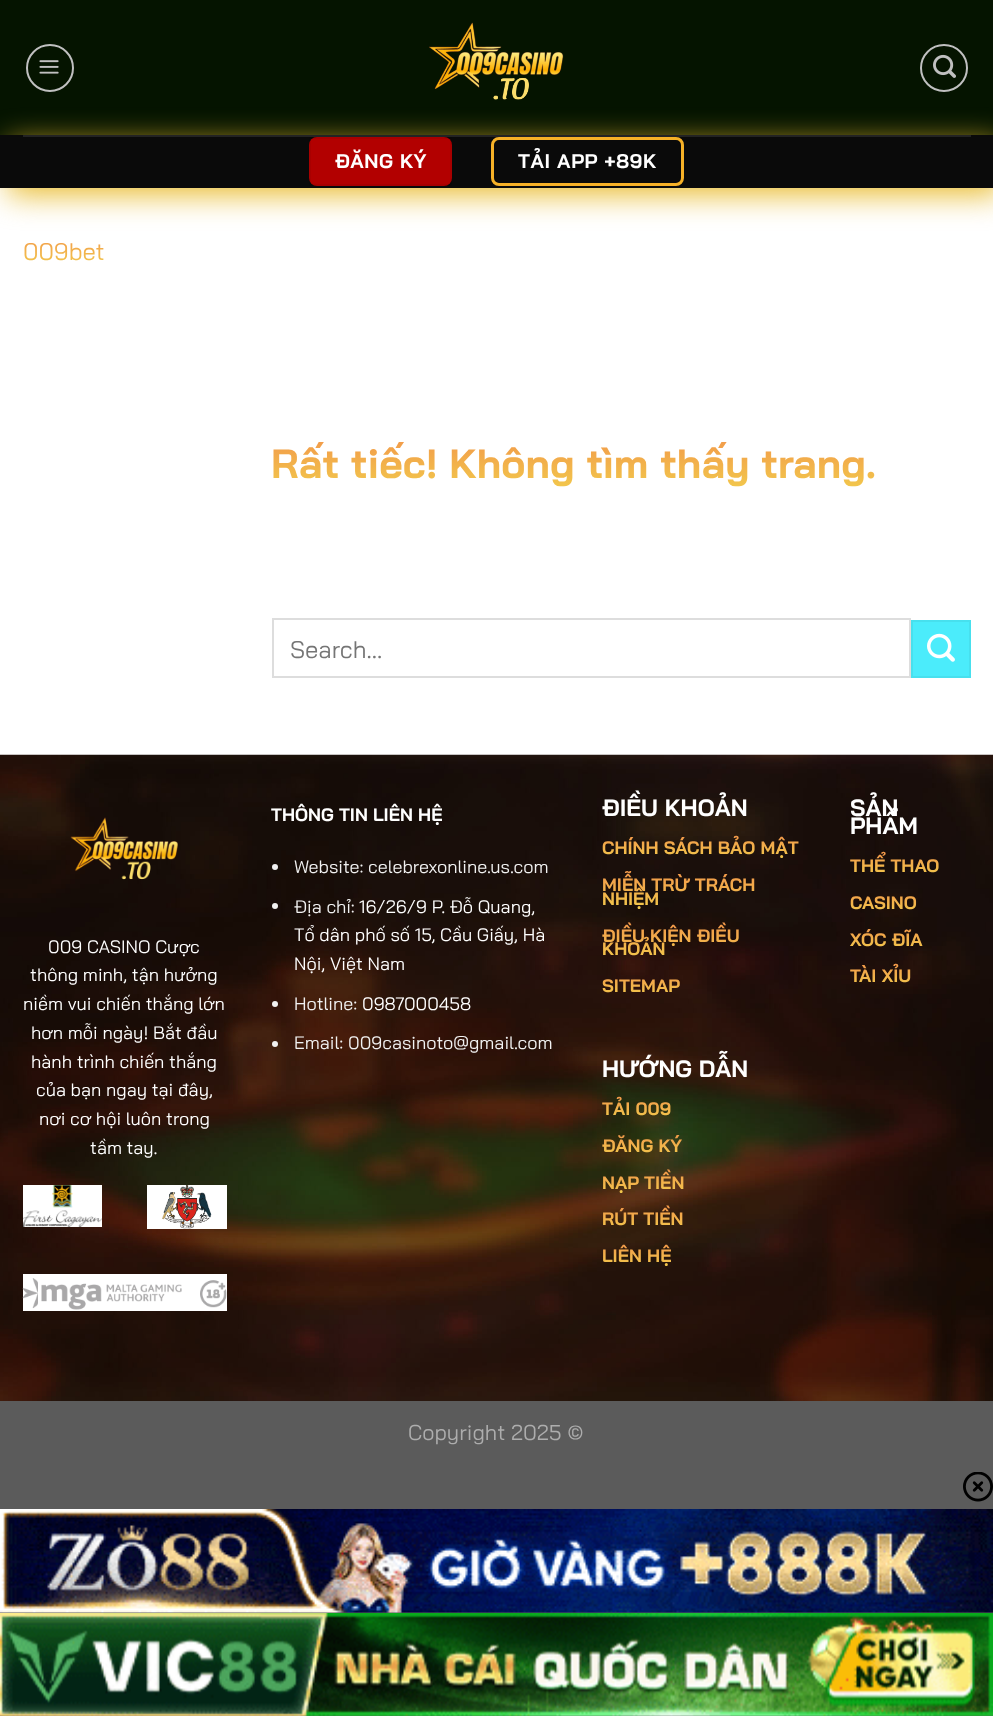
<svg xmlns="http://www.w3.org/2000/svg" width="993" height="1716">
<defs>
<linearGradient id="g1" gradientUnits="userSpaceOnUse" x1="63" y1="236" x2="63" y2="266"><stop offset="0" stop-color="#f2994a"/><stop offset="1" stop-color="#f2c94c"/></linearGradient>
<linearGradient id="g2" gradientUnits="userSpaceOnUse" x1="621" y1="437" x2="621" y2="490"><stop offset="0" stop-color="#f2994a"/><stop offset="1" stop-color="#f2c94c"/></linearGradient>
<linearGradient id="g3" gradientUnits="userSpaceOnUse" x1="700" y1="836" x2="700" y2="859"><stop offset="0" stop-color="#f2994a"/><stop offset="1" stop-color="#f2c94c"/></linearGradient>
<linearGradient id="g4" gradientUnits="userSpaceOnUse" x1="678" y1="873" x2="678" y2="909"><stop offset="0" stop-color="#f2994a"/><stop offset="1" stop-color="#f2c94c"/></linearGradient>
<linearGradient id="g5" gradientUnits="userSpaceOnUse" x1="671" y1="924" x2="671" y2="960"><stop offset="0" stop-color="#f2994a"/><stop offset="1" stop-color="#f2c94c"/></linearGradient>
<linearGradient id="g6" gradientUnits="userSpaceOnUse" x1="641" y1="974" x2="641" y2="996"><stop offset="0" stop-color="#f2994a"/><stop offset="1" stop-color="#f2c94c"/></linearGradient>
<linearGradient id="g7" gradientUnits="userSpaceOnUse" x1="636" y1="1097" x2="636" y2="1119"><stop offset="0" stop-color="#f2994a"/><stop offset="1" stop-color="#f2c94c"/></linearGradient>
<linearGradient id="g8" gradientUnits="userSpaceOnUse" x1="642" y1="1134" x2="642" y2="1156"><stop offset="0" stop-color="#f2994a"/><stop offset="1" stop-color="#f2c94c"/></linearGradient>
<linearGradient id="g9" gradientUnits="userSpaceOnUse" x1="643" y1="1171" x2="643" y2="1193"><stop offset="0" stop-color="#f2994a"/><stop offset="1" stop-color="#f2c94c"/></linearGradient>
<linearGradient id="g10" gradientUnits="userSpaceOnUse" x1="642" y1="1207" x2="642" y2="1230"><stop offset="0" stop-color="#f2994a"/><stop offset="1" stop-color="#f2c94c"/></linearGradient>
<linearGradient id="g11" gradientUnits="userSpaceOnUse" x1="636" y1="1244" x2="636" y2="1267"><stop offset="0" stop-color="#f2994a"/><stop offset="1" stop-color="#f2c94c"/></linearGradient>
<linearGradient id="g12" gradientUnits="userSpaceOnUse" x1="895" y1="854" x2="895" y2="876"><stop offset="0" stop-color="#f2994a"/><stop offset="1" stop-color="#f2c94c"/></linearGradient>
<linearGradient id="g13" gradientUnits="userSpaceOnUse" x1="883" y1="891" x2="883" y2="913"><stop offset="0" stop-color="#f2994a"/><stop offset="1" stop-color="#f2c94c"/></linearGradient>
<linearGradient id="g14" gradientUnits="userSpaceOnUse" x1="889" y1="928" x2="889" y2="950"><stop offset="0" stop-color="#f2994a"/><stop offset="1" stop-color="#f2c94c"/></linearGradient>
<linearGradient id="g15" gradientUnits="userSpaceOnUse" x1="881" y1="964" x2="881" y2="987"><stop offset="0" stop-color="#f2994a"/><stop offset="1" stop-color="#f2c94c"/></linearGradient>
</defs>
<rect width="100%" height="100%" fill="#5b5b5b"/>
<rect y="188" width="993" height="567" fill="#fff"/>
<rect width="993" height="135" fill="#051400"/>
<circle cx="50" cy="68" r="23" fill="none" stroke="#c0c0c0" stroke-width="2"/>
<image x="39" y="60" width="20" height="14" href="media/1.png"/>
<rect x="8" y="143" width="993" height="52" fill="#e9bc2f" filter="blur(15px)"/>
<image x="429" y="22" width="135" height="78" href="media/2.png"/>
<circle cx="944" cy="68" r="23" fill="none" stroke="#c0c0c0" stroke-width="2"/>
<image x="933" y="54" width="23" height="24" href="media/3.png"/>
<rect y="135" width="993" height="53" fill="#0a0a0a"/>
<rect x="23" y="135" width="948" height="2" fill="#232323"/>
<rect x="309" y="137" width="143" height="49" rx="8" fill="#b20000"/>
<rect x="310" y="138" width="141" height="47" fill="none" stroke="#0000000d" stroke-width="2"/>
<text x="335" y="168" style="font-family:Bai Jamjuree;font-size:19.75px;font-weight:bold;letter-spacing:0.6px;fill:#fff">ĐĂNG KÝ</text>
<rect x="492.5" y="138.5" width="190" height="46" rx="6.5" fill="none" stroke="#f6b127" stroke-width="3"/>
<text x="518" y="168" style="font-family:Bai Jamjuree;font-size:19.75px;font-weight:bold;letter-spacing:0.6px;fill:#fff">TẢI APP +89K</text>
<text x="23" y="260" style="font-family:Bai Jamjuree;font-size:24px;fill:url(#g1)">009bet</text>
<text x="271" y="478" style="font-family:Bai Jamjuree;font-size:40.75px;font-weight:bold;fill:url(#g2)">Rất tiếc! Không tìm thấy trang.</text>
<rect x="273" y="619" width="637" height="58" fill="none" stroke="#ddd" stroke-width="2"/>
<text x="290" y="658" style="font-family:Bai Jamjuree;font-size:24px;fill:#757575">Search…</text>
<rect x="912" y="621" width="58" height="56" fill="#4becfb" stroke="#47e0ee" stroke-width="2"/>
<image x="927" y="633" width="28" height="29" href="media/4.png"/>
<image x="0" y="754" width="993" height="647" href="media/5.png"/>
<image x="70" y="817" width="108" height="63" href="media/6.png"/>
<text x="48" y="953" style="font-family:Bai Jamjuree;font-size:18px;fill:#fff">009 CASINO Cược</text>
<text x="30" y="981" style="font-family:Bai Jamjuree;font-size:18px;fill:#fff">thông minh, tận hưởng</text>
<text x="23" y="1010" style="font-family:Bai Jamjuree;font-size:18px;fill:#fff">niềm vui chiến thắng lớn</text>
<text x="31" y="1039" style="font-family:Bai Jamjuree;font-size:18px;fill:#fff">hơn mỗi ngày! Bắt đầu</text>
<text x="31" y="1068" style="font-family:Bai Jamjuree;font-size:18px;fill:#fff">hành trình chiến thắng</text>
<text x="36" y="1096" style="font-family:Bai Jamjuree;font-size:18px;fill:#fff">của bạn ngay tại đây,</text>
<text x="39" y="1125" style="font-family:Bai Jamjuree;font-size:18px;fill:#fff">nơi cơ hội luôn trong</text>
<text x="90" y="1154" style="font-family:Bai Jamjuree;font-size:18px;fill:#fff">tầm tay.</text>
<rect x="23" y="1185" width="79" height="42" fill="#fff"/>
<image x="22" y="1185" width="80" height="42" href="media/7.png"/>
<rect x="147" y="1185" width="80" height="44" fill="#fff"/>
<image x="162" y="1185" width="50" height="44" href="media/8.png"/>
<rect x="23" y="1274" width="204" height="37" fill="#fff"/>
<image x="22" y="1278" width="205" height="32" href="media/9.png"/>
<text x="271" y="821" style="font-family:Bai Jamjuree;font-size:18px;font-weight:bold;fill:#fff">THÔNG TIN LIÊN HỆ</text>
<circle cx="275" cy="867" r="3" fill="#f1f1f1"/>
<text x="294" y="873" style="font-family:Bai Jamjuree;font-size:18px;fill:#f1f1f1">Website: celebrexonline.us.com</text>
<circle cx="275" cy="906" r="3" fill="#f1f1f1"/>
<text x="294" y="913" style="font-family:Bai Jamjuree;font-size:18px;fill:#f1f1f1">Địa chỉ:</text>
<text x="359" y="913" style="font-family:Bai Jamjuree;font-size:18px;fill:#fff">16/26/9 P. Đỗ Quang,</text>
<text x="294" y="941" style="font-family:Bai Jamjuree;font-size:18px;fill:#fff">Tổ dân phố số 15, Cầu Giấy, Hà</text>
<text x="294" y="970" style="font-family:Bai Jamjuree;font-size:18px;fill:#fff">Nội, Việt Nam</text>
<circle cx="275" cy="1004" r="3" fill="#f1f1f1"/>
<text x="294" y="1010" style="font-family:Bai Jamjuree;font-size:18px;fill:#f1f1f1">Hotline:</text>
<text x="362" y="1010" style="font-family:Bai Jamjuree;font-size:18px;fill:#fff">0987000458</text>
<circle cx="275" cy="1044" r="3" fill="#f1f1f1"/>
<text x="294" y="1049" style="font-family:Bai Jamjuree;font-size:18px;fill:#f1f1f1">Email: 009casinoto@gmail.com</text>
<text x="602" y="816" style="font-family:Bai Jamjuree;font-size:23.5px;font-weight:bold;fill:#fff">ĐIỀU KHOẢN</text>
<text x="602" y="854" style="font-family:Bai Jamjuree;font-size:18px;font-weight:bold;fill:url(#g3)">CHÍNH SÁCH BẢO MẬT</text>
<text x="602" y="891" style="font-family:Bai Jamjuree;font-size:18px;font-weight:bold;fill:url(#g4)">MIỄN TRỪ TRÁCH</text>
<text x="602" y="905" style="font-family:Bai Jamjuree;font-size:18px;font-weight:bold;fill:url(#g4)">NHIỆM</text>
<text x="602" y="942" style="font-family:Bai Jamjuree;font-size:18px;font-weight:bold;fill:url(#g5)">ĐIỀU KIỆN ĐIỀU</text>
<text x="602" y="955" style="font-family:Bai Jamjuree;font-size:18px;font-weight:bold;fill:url(#g5)">KHOẢN</text>
<text x="602" y="992" style="font-family:Bai Jamjuree;font-size:18px;font-weight:bold;fill:url(#g6)">SITEMAP</text>
<text x="602" y="1077" style="font-family:Bai Jamjuree;font-size:23.5px;font-weight:bold;fill:#fff">HƯỚNG DẪN</text>
<text x="602" y="1115" style="font-family:Bai Jamjuree;font-size:18px;font-weight:bold;fill:url(#g7)">TẢI 009</text>
<text x="602" y="1152" style="font-family:Bai Jamjuree;font-size:18px;font-weight:bold;fill:url(#g8)">ĐĂNG KÝ</text>
<text x="602" y="1189" style="font-family:Bai Jamjuree;font-size:18px;font-weight:bold;fill:url(#g9)">NẠP TIỀN</text>
<text x="602" y="1225" style="font-family:Bai Jamjuree;font-size:18px;font-weight:bold;fill:url(#g10)">RÚT TIỀN</text>
<text x="602" y="1262" style="font-family:Bai Jamjuree;font-size:18px;font-weight:bold;fill:url(#g11)">LIÊN HỆ</text>
<text x="850" y="816" style="font-family:Bai Jamjuree;font-size:23.5px;font-weight:bold;fill:#fff">SẢN</text>
<text x="850" y="834" style="font-family:Bai Jamjuree;font-size:23.5px;font-weight:bold;fill:#fff">PHẨM</text>
<text x="850" y="872" style="font-family:Bai Jamjuree;font-size:18px;font-weight:bold;fill:url(#g12)">THỂ THAO</text>
<text x="850" y="909" style="font-family:Bai Jamjuree;font-size:18px;font-weight:bold;fill:url(#g13)">CASINO</text>
<text x="850" y="946" style="font-family:Bai Jamjuree;font-size:18px;font-weight:bold;fill:url(#g14)">XÓC ĐĨA</text>
<text x="850" y="982" style="font-family:Bai Jamjuree;font-size:18px;font-weight:bold;fill:url(#g15)">TÀI XỈU</text>
<text x="408" y="1440" style="font-family:Bai Jamjuree;font-size:21.5px;fill:#adadad">Copyright 2025 ©</text>
<image x="963" y="1472" width="30" height="30" href="media/10.png"/>
<image x="0" y="1509" width="993" height="104" href="media/11.png"/>
<image x="0" y="1613" width="993" height="103" href="media/12.png"/>
</svg>
